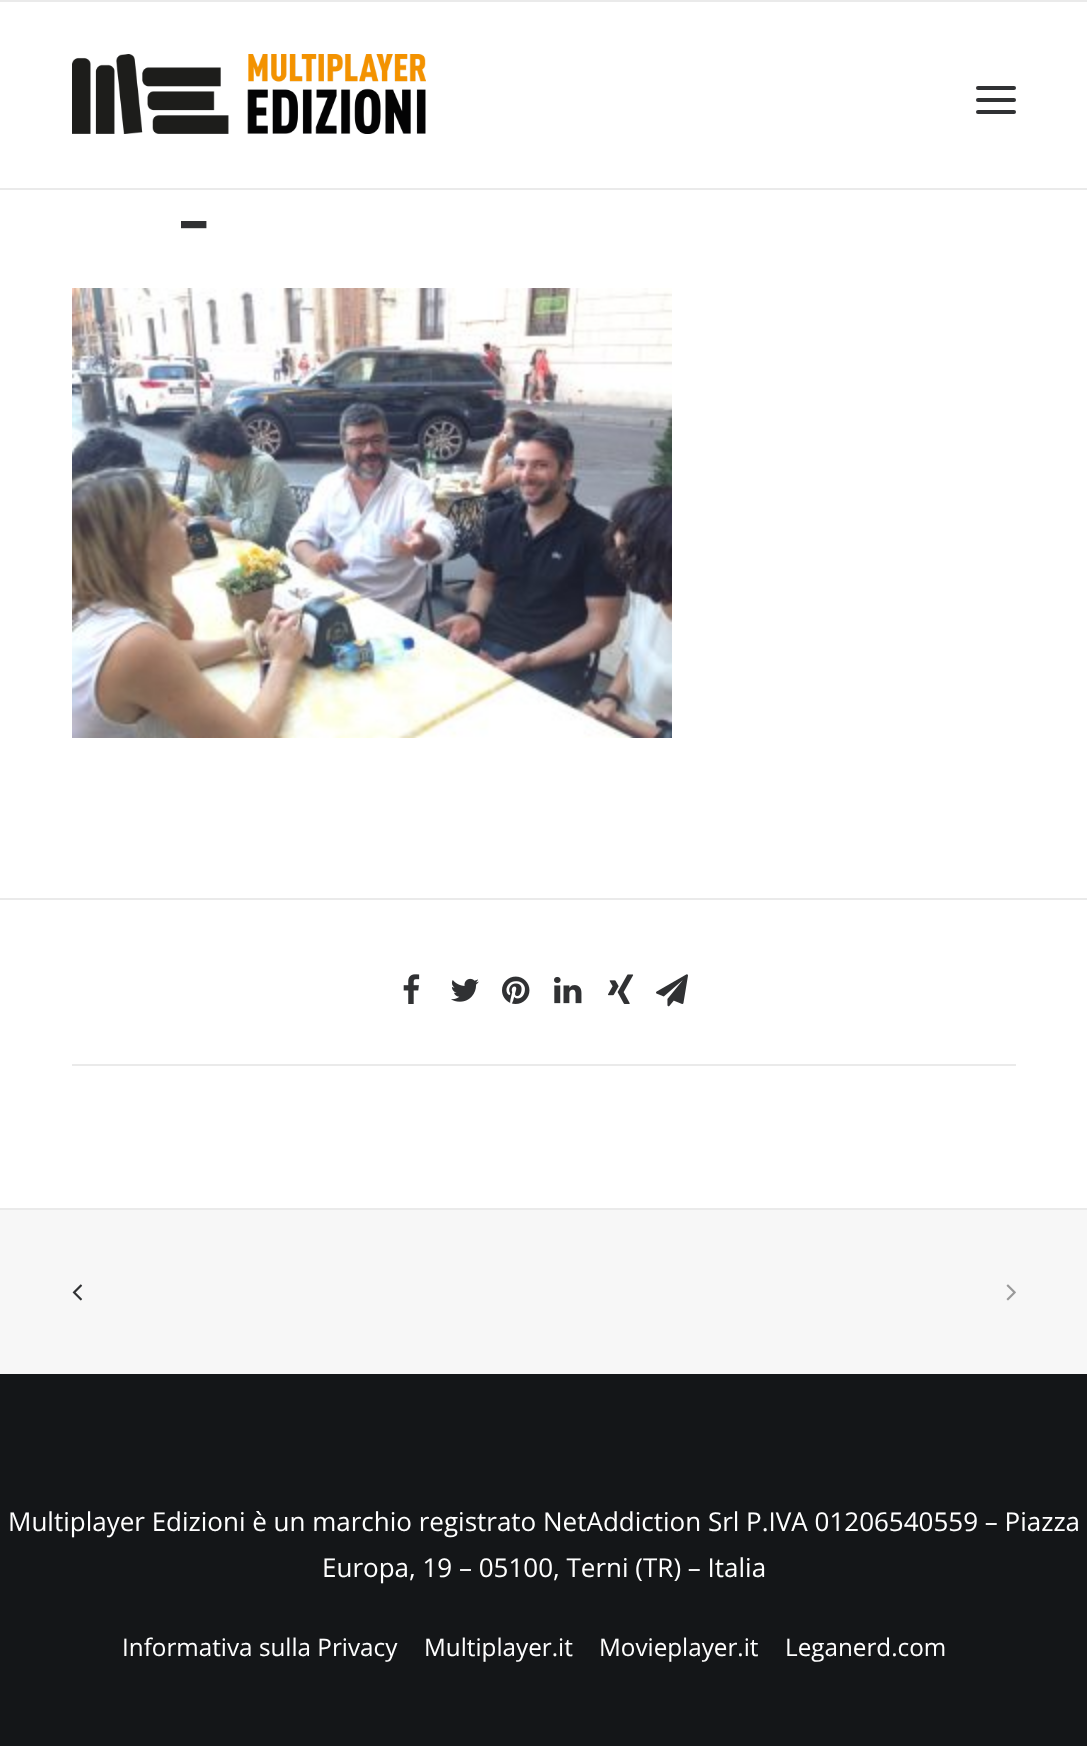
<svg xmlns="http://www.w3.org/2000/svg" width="1087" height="1746">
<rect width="100%" height="100%" fill="#fff"/>
<rect width="1087" height="2" fill="#eaeaea"/>
<rect y="188" width="1087" height="2" fill="#eaeaea"/>
<image x="72" y="54" width="354" height="80" href="media/1.png"/>
<rect x="976" y="98" width="40" height="4" rx="2" fill="#303133"/>
<rect x="976" y="86" width="40" height="4" rx="2" fill="#303133"/>
<rect x="976" y="110" width="40" height="4" rx="2" fill="#303133"/>
<text x="181" y="217" style="font-family:Oswald;font-size:70px;font-weight:600;fill:#303133">_</text>
<image x="72" y="288" width="600" height="450" href="media/2.png"/>
<rect y="898" width="1087" height="2" fill="#eaeaea"/>
<rect x="72" y="1064" width="944" height="2" fill="#eaeaea"/>
<image x="403" y="974" width="17" height="30" href="media/3.png"/>
<image x="451" y="978" width="28" height="24" href="media/4.png"/>
<image x="502" y="976" width="28" height="28" href="media/5.png"/>
<image x="554" y="976" width="28" height="28" href="media/6.png"/>
<image x="608" y="974" width="26" height="30" href="media/7.png"/>
<image x="656" y="974" width="32" height="33" href="media/8.png"/>
<rect x="-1" y="1209" width="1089" height="166" fill="#f7f7f7" stroke="#eaeaea" stroke-width="2"/>
<image x="72" y="1284" width="11" height="17" href="media/9.png"/>
<image x="1006" y="1284" width="10" height="17" href="media/10.png"/>
<rect y="1374" width="1087" height="372" fill="#141618"/>
<text x="8" y="1531" style="font-family:Open Sans;font-size:26px;fill:#fff">Multiplayer Edizioni è un marchio registrato NetAddiction Srl P.IVA 01206540559 – Piazza</text>
<text x="322" y="1577" style="font-family:Open Sans;font-size:26px;fill:#fff">Europa, 19 – 05100, Terni (TR) – Italia</text>
<text x="122" y="1656" style="font-family:Open Sans;font-size:24.25px;fill:#fff">Informativa sulla Privacy</text>
<text x="424" y="1656" style="font-family:Open Sans;font-size:24.25px;fill:#fff">Multiplayer.it</text>
<text x="599" y="1656" style="font-family:Open Sans;font-size:24.25px;fill:#fff">Movieplayer.it</text>
<text x="785" y="1656" style="font-family:Open Sans;font-size:24.25px;fill:#fff">Leganerd.com</text>
</svg>
